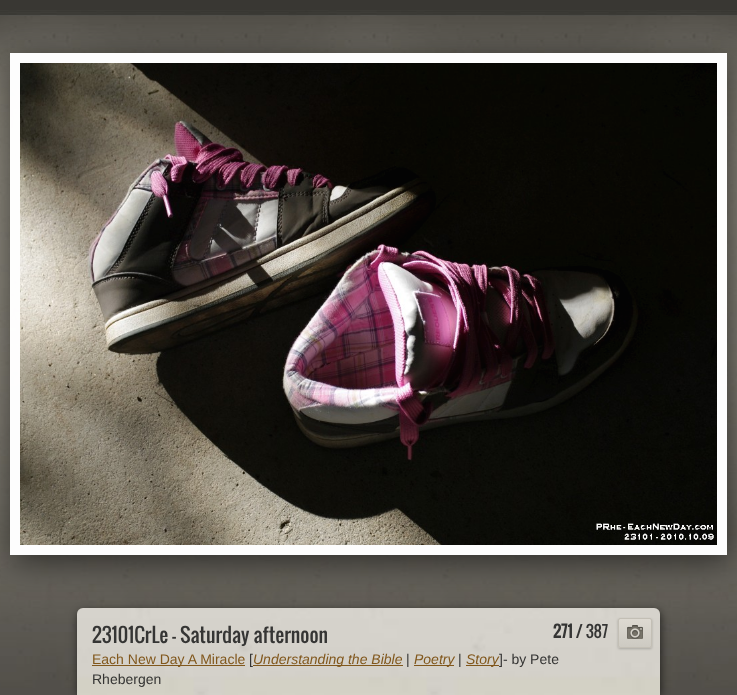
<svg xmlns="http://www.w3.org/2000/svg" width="737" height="695">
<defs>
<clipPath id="clip1"><path d="M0 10h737v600h-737zm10 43h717v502h-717z" clip-rule="evenodd"/></clipPath>
<clipPath id="clip2"><path d="M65 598h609v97h-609zm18 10h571c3.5 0 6 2.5 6 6v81h-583v-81c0-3.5 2.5-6 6-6z" clip-rule="evenodd"/></clipPath>
<clipPath id="clip3"><path d="M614 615h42v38h-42zm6 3h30c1 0 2 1 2 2v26c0 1-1 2-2 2h-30c-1 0-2-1-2-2v-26c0-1 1-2 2-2z" clip-rule="evenodd"/></clipPath>
<linearGradient id="g1" gradientUnits="userSpaceOnUse" x1="635" y1="619" x2="635" y2="647"><stop offset="0" stop-color="#dedad2" stop-opacity="0.99"/><stop offset="1" stop-color="#cdcac2" stop-opacity="0.99"/></linearGradient>
</defs>
<rect width="100%" height="100%" fill="#393733"/>
<image x="0" y="10" width="737" height="685" href="media/1.png"/>
<g clip-path="url(#clip1)">
<rect x="13" y="59" width="717" height="502" fill="#00000096" filter="blur(16px)"/>
</g>
<rect x="10" y="53" width="717" height="502" fill="#fffffffc"/>
<image x="20" y="63" width="697" height="482" href="media/2.png"/>
<g clip-path="url(#clip2)">
<rect x="78" y="611" width="583" height="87" rx="6" fill="#00000096" filter="blur(4px)"/>
</g>
<image x="77" y="608" width="583" height="87" href="media/3.png"/>
<text x="92" y="643" style="font-family:Oswald;font-size:19.6px;fill:#353534">23101CrLe - Saturday afternoon</text>
<rect x="92" y="665" width="153" height="1" fill="#80561afc"/>
<text x="92" y="664" style="font-family:Liberation Sans;font-size:14px;fill:#81571c">Each New Day A Miracle</text>
<text x="249" y="664" style="font-family:Liberation Sans;font-size:14px;fill:#353534">[</text>
<rect x="253" y="665" width="150" height="1" fill="#80561afc"/>
<text x="253" y="664" style="font-family:Liberation Sans;font-size:14px;font-style:italic;fill:#81571c">Understanding the Bible</text>
<text x="406" y="664" style="font-family:Liberation Sans;font-size:14px;fill:#353534">|</text>
<rect x="414" y="665" width="40" height="1" fill="#81571c"/>
<text x="414" y="664" style="font-family:Liberation Sans;font-size:14px;font-style:italic;fill:#81571c">Poetry</text>
<text x="458" y="664" style="font-family:Liberation Sans;font-size:14px;fill:#353534">|</text>
<rect x="466" y="665" width="33" height="1" fill="#80561b"/>
<text x="466" y="664" style="font-family:Liberation Sans;font-size:14px;font-style:italic;fill:#81571c">Story</text>
<text x="499" y="664" style="font-family:Liberation Sans;font-size:14px;fill:#353534">]- by Pete</text>
<text x="92" y="684" style="font-family:Liberation Sans;font-size:14px;fill:#353534">Rhebergen</text>
<text x="553" y="638" style="font-family:Oswald;font-size:16px;font-weight:bold;fill:#353534">271</text>
<text x="576" y="638" style="font-family:Oswald;font-size:16px;fill:#353534">/ 387</text>
<g clip-path="url(#clip3)">
<rect x="618" y="619" width="34" height="30" rx="2" fill="#00000033" filter="blur(1px)"/>
</g>
<rect x="619" y="619" width="32" height="28" rx="1" fill="#ada9a0fc"/>
<rect x="619" y="619" width="32" height="28" rx="1" fill="url(#g1)"/>
<rect x="618.5" y="618.5" width="33" height="29" rx="1.5" fill="none" stroke="#c2beb4fc"/>
<image x="627" y="625" width="16" height="14" href="media/4.png"/>
</svg>
